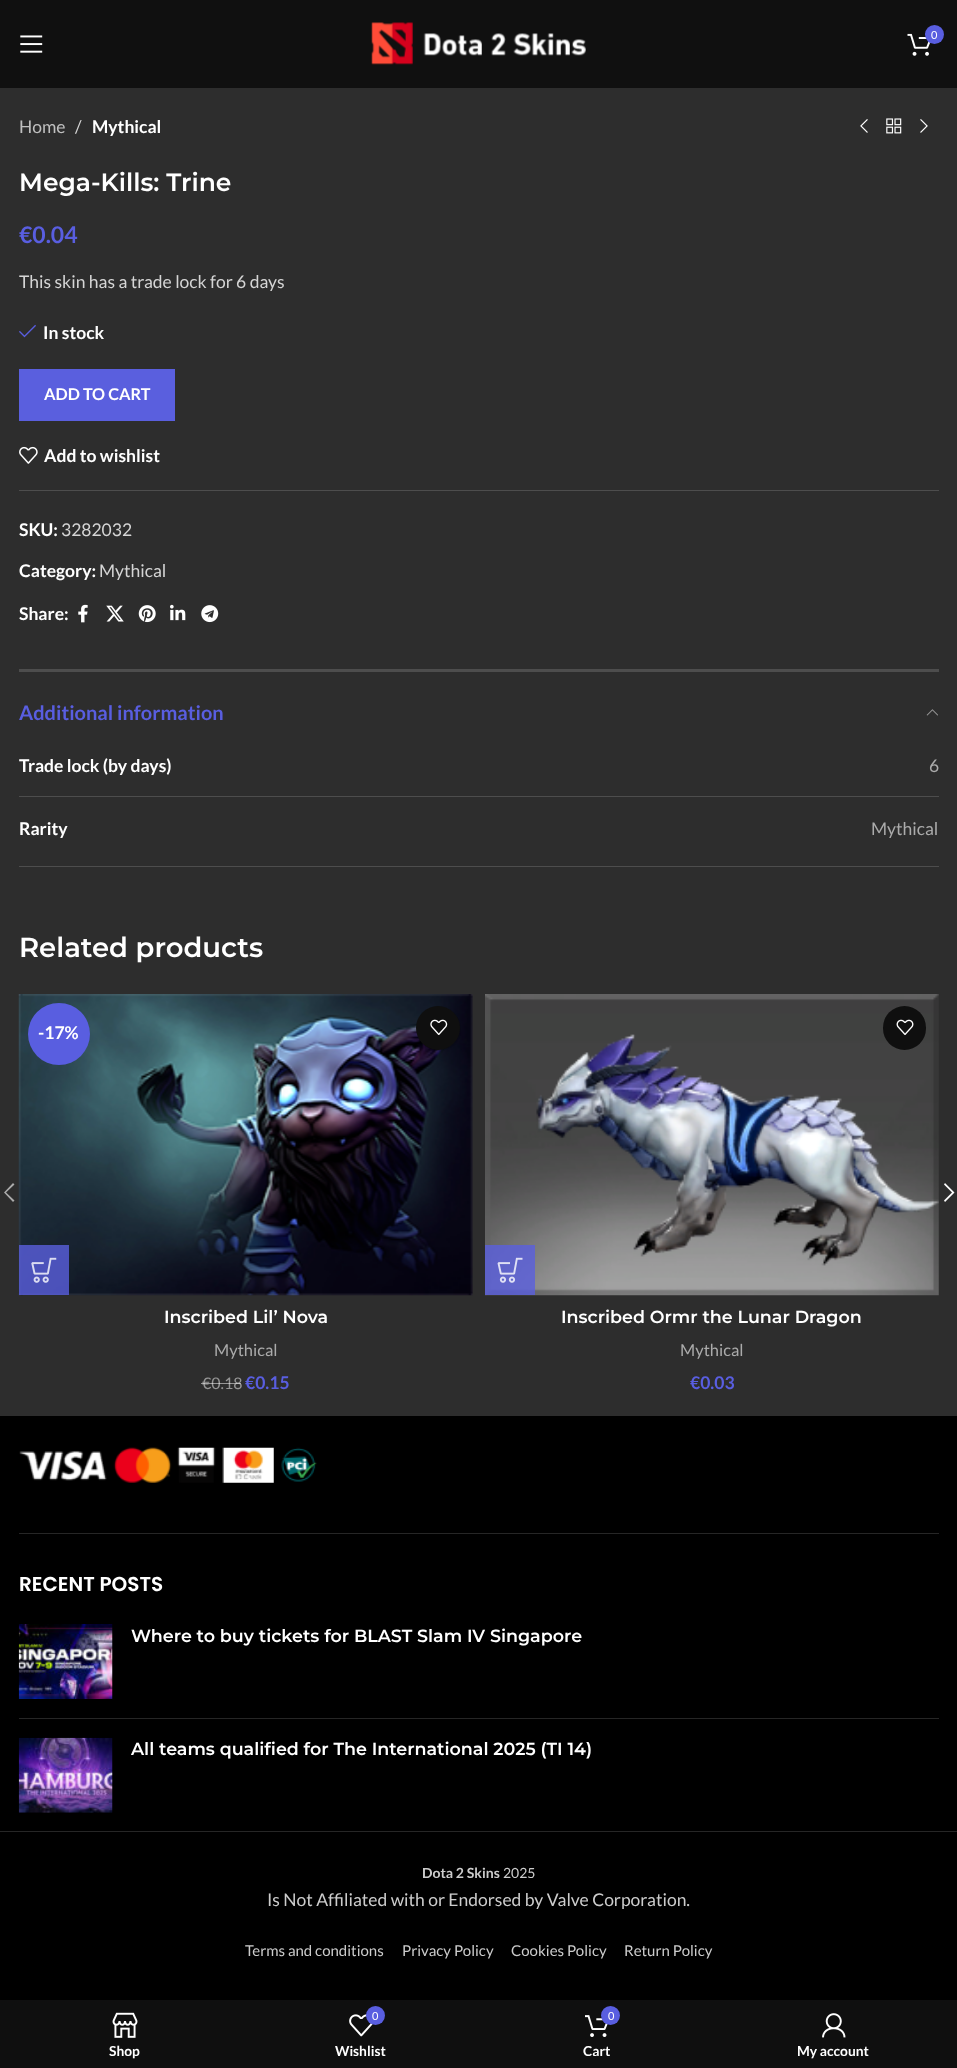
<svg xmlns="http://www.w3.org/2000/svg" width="957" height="2068">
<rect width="100%" height="100%" fill="#2d2d2d"/>
<rect width="957" height="88" fill="#101010"/>
<image x="20" y="35" width="23" height="18" href="media/1.png"/>
<image x="371" y="22" width="215" height="43" href="media/2.png"/>
<image x="907" y="33" width="24" height="23" href="media/3.png"/>
<circle cx="934.5" cy="34.5" r="9.5" fill="#595ee0"/>
<text x="931" y="39" style="font-family:Lato;font-size:11px;fill:#fff">0</text>
<text x="19" y="133" style="font-family:Lato;font-size:17.5px;fill:#c0c0c0">Home</text>
<text x="75" y="133" style="font-family:Lato;font-size:17.5px;fill:#d5d5d5">/</text>
<text x="92" y="133" style="font-family:Lato;font-size:17.5px;font-weight:bold;fill:#fff">Mythical</text>
<image x="860" y="119" width="8" height="14" href="media/4.png"/>
<image x="886" y="118" width="16" height="16" href="media/5.png"/>
<image x="920" y="119" width="8" height="14" href="media/6.png"/>
<text x="19" y="191" style="font-family:Montserrat;font-size:25px;font-weight:600;fill:#fff">Mega-Kills: Trine</text>
<text x="19" y="243" style="font-family:Lato;font-size:23px;font-weight:bold;fill:#595ee0">€0.04</text>
<text x="19" y="288" style="font-family:Lato;font-size:17.5px;fill:#d5d5d5">This skin has a trade lock for 6 days</text>
<image x="19" y="324" width="17" height="14" href="media/7.png"/>
<text x="43" y="339" style="font-family:Lato;font-size:17.5px;font-weight:bold;fill:#fff">In stock</text>
<rect x="19" y="369" width="156" height="52" fill="#5a5fde"/>
<text x="44" y="400" style="font-family:Lato;font-size:16.25px;font-weight:bold;fill:#fff">ADD TO CART</text>
<image x="19" y="446" width="19" height="18" href="media/8.png"/>
<text x="44" y="462" style="font-family:Lato;font-size:17.5px;font-weight:bold;fill:#fff">Add to wishlist</text>
<rect x="19" y="490" width="920" height="1" fill="#4d4d4d"/>
<text x="19" y="536" style="font-family:Lato;font-size:17.5px;font-weight:bold;fill:#fff">SKU:</text>
<text x="61" y="536" style="font-family:Lato;font-size:17.5px;fill:#d5d5d5">3282032</text>
<text x="19" y="577" style="font-family:Lato;font-size:17.5px;font-weight:bold;fill:#fff">Category:</text>
<text x="99" y="577" style="font-family:Lato;font-size:17.5px;fill:#d5d5d5">Mythical</text>
<text x="19" y="620" style="font-family:Lato;font-size:17.5px;font-weight:bold;fill:#fff">Share:</text>
<image x="78" y="604" width="10" height="19" href="media/9.png"/>
<image x="106" y="605" width="18" height="17" href="media/10.png"/>
<image x="138" y="605" width="18" height="18" href="media/11.png"/>
<image x="170" y="604" width="16" height="17" href="media/12.png"/>
<image x="201" y="605" width="18" height="18" href="media/13.png"/>
<rect x="19" y="669" width="920" height="3" fill="#4d4d4d"/>
<rect x="19" y="866" width="920" height="1" fill="#4d4d4d"/>
<text x="19" y="720" style="font-family:Lato;font-size:20px;font-weight:bold;fill:#595ee0">Additional information</text>
<image x="926" y="709" width="12" height="7" href="media/14.png"/>
<rect x="19" y="796" width="920" height="1" fill="#4d4d4d"/>
<text x="19" y="772" style="font-family:Lato;font-size:17.5px;font-weight:bold;fill:#fff">Trade lock (by days)</text>
<text x="929" y="772" style="font-family:Lato;font-size:17.5px;fill:#ababab">6</text>
<text x="19" y="835" style="font-family:Lato;font-size:17.5px;font-weight:bold;fill:#fff">Rarity</text>
<text x="871" y="835" style="font-family:Lato;font-size:17.5px;fill:#ababab">Mythical</text>
<text x="19" y="957" style="font-family:Montserrat;font-size:27.5px;font-weight:600;fill:#fff">Related products</text>
<image x="18" y="994" width="455" height="302" href="media/15.png"/>
<circle cx="59" cy="1034" r="31" fill="#595ee0"/>
<text x="38" y="1039" style="font-family:Lato;font-size:17.5px;font-weight:bold;fill:#fff">-17%</text>
<rect x="418" y="1008" width="43" height="43" rx="21.5" fill="#0000001a" filter="blur(0.5px)"/>
<circle cx="438" cy="1028" r="22" fill="#0f0f0f"/>
<image x="430" y="1019" width="18" height="16" href="media/16.png"/>
<rect x="19" y="1245" width="50" height="50" fill="#5a5fdecc"/>
<image x="31" y="1257" width="26" height="26" href="media/17.png"/>
<text x="164" y="1323" style="font-family:Montserrat;font-size:17.5px;font-weight:600;fill:#fff">Inscribed Lil’ Nova</text>
<text x="214" y="1356" style="font-family:Lato;font-size:16.5px;fill:#ababab">Mythical</text>
<text x="202" y="1389" style="font-family:Lato;font-size:16px;fill:#969696">€0.18</text>
<rect x="201" y="1383" width="10" height="1" fill="#ffffff80"/>
<rect x="211" y="1383" width="30" height="1" fill="#ffffff80"/>
<text x="245" y="1389" style="font-family:Lato;font-size:17.5px;font-weight:bold;fill:#595ee0">€0.15</text>
<image x="485" y="994" width="454" height="302" href="media/18.png"/>
<rect x="883" y="1006" width="43" height="44" rx="21.5" fill="#0f0f0f"/>
<image x="896" y="1019" width="18" height="16" href="media/19.png"/>
<rect x="485" y="1245" width="50" height="50" fill="#5a5fdecc"/>
<image x="497" y="1257" width="26" height="26" href="media/20.png"/>
<text x="561" y="1323" style="font-family:Montserrat;font-size:17.5px;font-weight:600;fill:#fff">Inscribed Ormr the Lunar Dragon</text>
<text x="680" y="1356" style="font-family:Lato;font-size:16.5px;fill:#ababab">Mythical</text>
<text x="690" y="1389" style="font-family:Lato;font-size:17.5px;font-weight:bold;fill:#595ee0">€0.03</text>
<path d="M14.5 1184.5l-1.5-1.5l-9 9.5l9 9.5l1.5-1.5l-8.5-8z" fill="#ababab"/>
<path d="M944 1184.5l8 8l-8 8l1 1.5l9.5-9.5l-9.5-9.5z" fill="#fff"/>
<rect y="1416" width="957" height="584" fill="#000"/>
<rect x="19" y="1533" width="920" height="1" fill="#262626"/>
<image x="19" y="1447" width="298" height="36" href="media/21.png"/>
<text x="19" y="1591" style="font-family:Poppins;font-size:20px;font-weight:600;fill:#fff">RECENT POSTS</text>
<rect x="19" y="1718" width="920" height="1" fill="#262626"/>
<image x="18" y="1624" width="95" height="75" href="media/22.png"/>
<text x="131" y="1642" style="font-family:Montserrat;font-size:17.5px;font-weight:600;fill:#fff">Where to buy tickets for BLAST Slam IV Singapore</text>
<image x="18" y="1737" width="95" height="76" href="media/23.png"/>
<text x="131" y="1755" style="font-family:Montserrat;font-size:17.5px;font-weight:600;fill:#fff">All teams qualified for The International 2025 (TI 14)</text>
<rect y="1831" width="957" height="1" fill="#262626"/>
<text x="422" y="1878" style="font-family:Lato;font-size:14px;font-weight:bold;fill:#ccc">Dota 2 Skins</text>
<text x="503" y="1878" style="font-family:Lato;font-size:14px;fill:#ccc">2025</text>
<text x="267" y="1906" style="font-family:Lato;font-size:17.5px;fill:#ccc">Is Not Affiliated with or Endorsed by Valve Corporation.</text>
<text x="245" y="1956" style="font-family:Lato;font-size:15px;fill:#ccc">Terms and conditions</text>
<text x="402" y="1956" style="font-family:Lato;font-size:15px;fill:#ccc">Privacy Policy</text>
<text x="511" y="1956" style="font-family:Lato;font-size:15px;fill:#ccc">Cookies Policy</text>
<text x="624" y="1956" style="font-family:Lato;font-size:15px;fill:#ccc">Return Policy</text>
<rect y="2000" width="957" height="68" fill="#0f0f0f"/>
<image x="112" y="2012" width="26" height="26" href="media/24.png"/>
<text x="109" y="2056" style="font-family:Lato;font-size:13.75px;font-weight:bold;fill:#fff">Shop</text>
<image x="349" y="2014" width="24" height="23" href="media/25.png"/>
<circle cx="375.5" cy="2015.5" r="9.5" fill="#595ee0"/>
<text x="372" y="2020" style="font-family:Lato;font-size:11px;fill:#fff">0</text>
<text x="335" y="2056" style="font-family:Lato;font-size:13.75px;font-weight:bold;fill:#fff">Wishlist</text>
<image x="585" y="2015" width="23" height="22" href="media/26.png"/>
<circle cx="610.5" cy="2015.5" r="9.5" fill="#595ee0"/>
<text x="608" y="2020" style="font-family:Lato;font-size:11px;fill:#fff">0</text>
<text x="583" y="2056" style="font-family:Lato;font-size:13.75px;font-weight:bold;fill:#fff">Cart</text>
<image x="822" y="2013" width="24" height="25" href="media/27.png"/>
<text x="797" y="2056" style="font-family:Lato;font-size:13.75px;font-weight:bold;fill:#fff">My account</text>
</svg>
